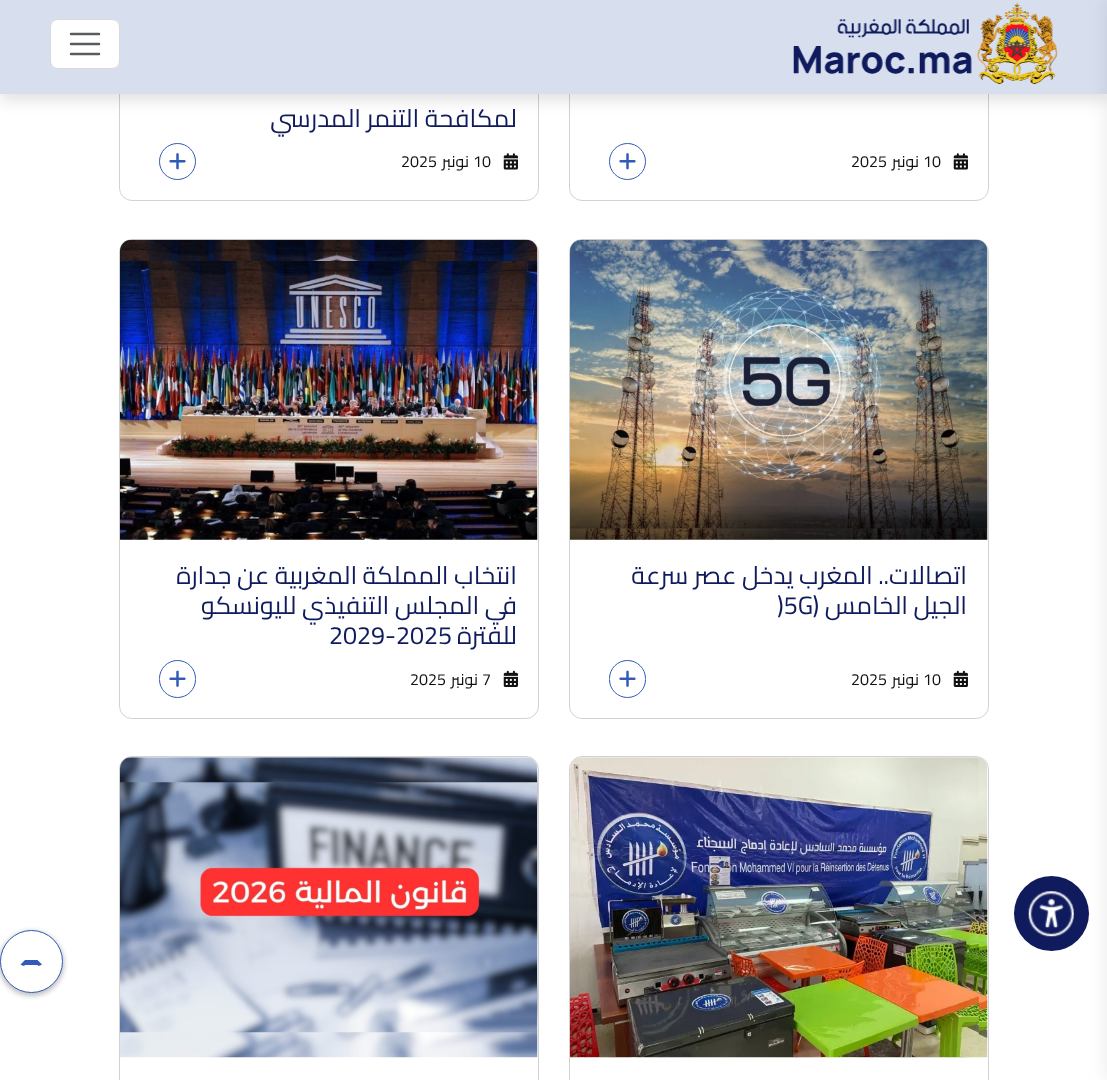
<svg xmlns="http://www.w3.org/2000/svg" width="1107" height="1080">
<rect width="100%" height="100%" fill="#fff"/>
<rect x="569.5" y="-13.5" width="419" height="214" rx="12.5" fill="none" stroke="#d2d2d2"/>
<rect x="119.5" y="-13.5" width="419" height="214" rx="12.5" fill="none" stroke="#d2d2d2"/>
<rect y="6" width="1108" height="94" fill="#0000001f" filter="blur(7.5px)"/>
<rect width="1107" height="94" fill="#d7dfef"/>
<image x="793" y="2" width="265" height="82" href="media/1.png"/>
<rect x="50" y="19" width="70" height="50" rx="8" fill="#fff"/>
<rect x="50.5" y="19.5" width="69" height="49" rx="7.5" fill="none" stroke="#00000026"/>
<path d="M71 34h28m-28 10h28m-28 10h28" fill="none" stroke="#595c5f" stroke-width="2.5" stroke-linecap="round"/>
<circle cx="1051.5" cy="913.5" r="37.5" fill="#0f1b5c"/>
<rect x="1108" width="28" height="1080" fill="#0000001a" filter="blur(9.5px)"/>
<image x="953" y="153" width="15" height="17" href="media/2.png"/>
<text x="923" y="167" style="font-family:Cairo;font-size:16px;fill:#111">10</text>
<text x="919" y="167" style="font-family:Cairo;font-size:16px;direction:rtl;fill:#111">نونبر</text>
<text x="851" y="167" style="font-family:Cairo;font-size:16px;fill:#111">2025</text>
<circle cx="627.5" cy="161.5" r="18" fill="none" stroke="#335ab7"/>
<image x="619" y="153" width="17" height="17" href="media/3.png"/>
<text x="517" y="127" style="font-family:Cairo;font-size:25px;direction:rtl;fill:#0f1b5c">لمكافحة التنمر المدرسي</text>
<image x="503" y="153" width="15" height="17" href="media/2.png"/>
<text x="473" y="167" style="font-family:Cairo;font-size:16px;fill:#111">10</text>
<text x="469" y="167" style="font-family:Cairo;font-size:16px;direction:rtl;fill:#111">نونبر</text>
<text x="401" y="167" style="font-family:Cairo;font-size:16px;fill:#111">2025</text>
<circle cx="177.5" cy="161.5" r="18" fill="none" stroke="#335ab7"/>
<image x="169" y="153" width="17" height="17" href="media/3.png"/>
<rect x="569.5" y="239.5" width="419" height="479" rx="12.5" fill="none" stroke="#d2d2d2"/>
<image x="570" y="239" width="418" height="301" href="media/4.png"/>
<image x="570" y="251" width="418" height="278" href="media/5.png"/>
<text x="967" y="584" style="font-family:Cairo;font-size:25px;direction:rtl;fill:#0f1b5c">اتصالات.. المغرب يدخل عصر سرعة</text>
<text x="967" y="614" style="font-family:Cairo;font-size:25px;direction:rtl;fill:#0f1b5c">الجيل الخامس (</text>
<text x="777" y="614" style="font-family:Cairo;font-size:25px;fill:#0f1b5c">)5G</text>
<image x="953" y="670" width="15" height="17" href="media/6.png"/>
<text x="923" y="685" style="font-family:Cairo;font-size:16px;fill:#111">10</text>
<text x="919" y="685" style="font-family:Cairo;font-size:16px;direction:rtl;fill:#111">نونبر</text>
<text x="851" y="685" style="font-family:Cairo;font-size:16px;fill:#111">2025</text>
<rect x="609.5" y="660.5" width="36" height="37" rx="18" fill="none" stroke="#335ab7"/>
<image x="619" y="670" width="17" height="17" href="media/7.png"/>
<rect x="119.5" y="239.5" width="419" height="479" rx="12.5" fill="none" stroke="#d2d2d2"/>
<image x="120" y="239" width="418" height="301" href="media/8.png"/>
<image x="120" y="261" width="418" height="258" href="media/9.png"/>
<text x="517" y="584" style="font-family:Cairo;font-size:25px;direction:rtl;fill:#0f1b5c">انتخاب المملكة المغربية عن جدارة</text>
<text x="517" y="614" style="font-family:Cairo;font-size:25px;direction:rtl;fill:#0f1b5c">في المجلس التنفيذي لليونسكو</text>
<text x="517" y="644" style="font-family:Cairo;font-size:25px;direction:rtl;fill:#0f1b5c">للفترة</text>
<text x="329" y="644" style="font-family:Cairo;font-size:25px;fill:#0f1b5c">2029-2025</text>
<image x="503" y="670" width="15" height="17" href="media/6.png"/>
<text x="482" y="685" style="font-family:Cairo;font-size:16px;fill:#111">7</text>
<text x="478" y="685" style="font-family:Cairo;font-size:16px;direction:rtl;fill:#111">نونبر</text>
<text x="410" y="685" style="font-family:Cairo;font-size:16px;fill:#111">2025</text>
<rect x="159.5" y="660.5" width="36" height="37" rx="18" fill="none" stroke="#335ab7"/>
<image x="169" y="670" width="17" height="17" href="media/7.png"/>
<rect x="569.5" y="756.5" width="419" height="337" rx="12.5" fill="none" stroke="#d2d2d2"/>
<image x="570" y="757" width="418" height="301" href="media/10.png"/>
<image x="578" y="757" width="401" height="300" href="media/11.png"/>
<rect x="119.5" y="756.5" width="419" height="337" rx="12.5" fill="none" stroke="#d2d2d2"/>
<image x="120" y="757" width="418" height="301" href="media/12.png"/>
<image x="120" y="782" width="418" height="251" href="media/13.png"/>
<image x="1028" y="891" width="46" height="46" href="media/14.png"/>
<rect x="-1" y="931" width="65" height="65" rx="32.5" fill="#00000040" filter="blur(2.5px)"/>
<circle cx="31.5" cy="961.5" r="31" fill="#fff" stroke="#335ab7"/>
<path d="M42 964.5l-4.5-4.5h-12.5l-4.5 4.5c3 2.5 7.5 1.5 10.5 1.5c3.5 0 8 1 11-1.5z" fill="#335ab7"/>
<path d="M42 969.5l-4.5-4.5h-12.5l-4.5 4.5c3 2.5 7.5 1.5 10.5 1.5c3.5 0 8 1 11-1.5z" fill="#fff"/>
</svg>
